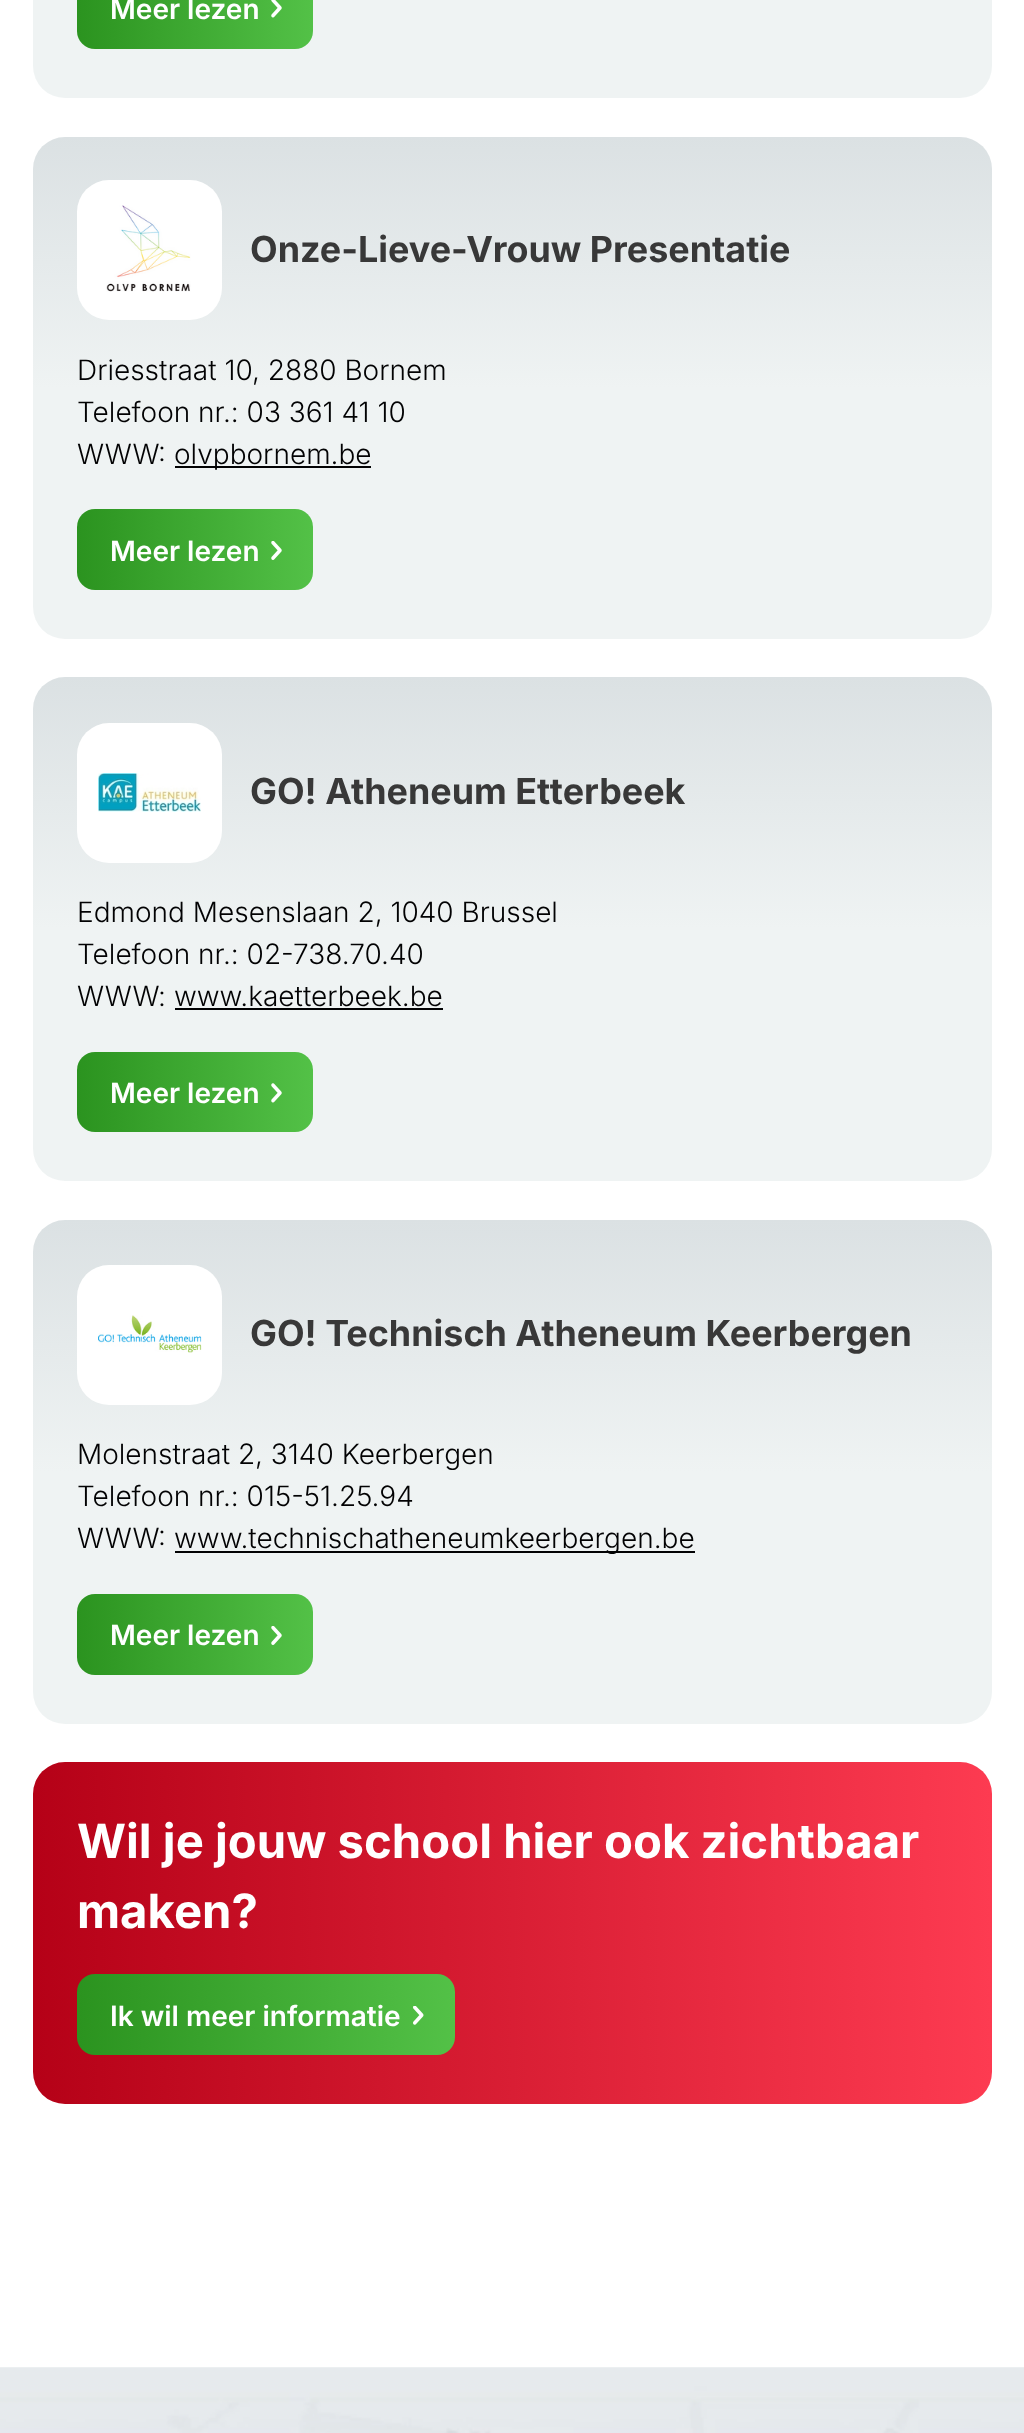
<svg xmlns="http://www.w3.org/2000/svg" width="1024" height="2433">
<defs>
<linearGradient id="g1" gradientUnits="userSpaceOnUse" x1="513" y1="98" x2="513" y2="-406"><stop offset="0" stop-color="#eff3f3"/><stop offset="0.5" stop-color="#eff3f3"/><stop offset="1" stop-color="#dbe1e3"/></linearGradient>
<linearGradient id="g2" gradientUnits="userSpaceOnUse" x1="77" y1="9" x2="313" y2="9"><stop offset="0" stop-color="#2b931f"/><stop offset="1" stop-color="#53c147"/></linearGradient>
<linearGradient id="g3" gradientUnits="userSpaceOnUse" x1="513" y1="639" x2="513" y2="137"><stop offset="0" stop-color="#eff3f3"/><stop offset="0.5" stop-color="#eff3f3"/><stop offset="1" stop-color="#dbe1e3"/></linearGradient>
<linearGradient id="g4" gradientUnits="userSpaceOnUse" x1="77" y1="550" x2="313" y2="550"><stop offset="0" stop-color="#2b931f"/><stop offset="1" stop-color="#53c147"/></linearGradient>
<linearGradient id="g5" gradientUnits="userSpaceOnUse" x1="513" y1="1181" x2="513" y2="677"><stop offset="0" stop-color="#eff3f3"/><stop offset="0.5" stop-color="#eff3f3"/><stop offset="1" stop-color="#dbe1e3"/></linearGradient>
<linearGradient id="g6" gradientUnits="userSpaceOnUse" x1="77" y1="1092" x2="313" y2="1092"><stop offset="0" stop-color="#2b931f"/><stop offset="1" stop-color="#53c147"/></linearGradient>
<linearGradient id="g7" gradientUnits="userSpaceOnUse" x1="513" y1="1724" x2="513" y2="1220"><stop offset="0" stop-color="#eff3f3"/><stop offset="0.5" stop-color="#eff3f3"/><stop offset="1" stop-color="#dbe1e3"/></linearGradient>
<linearGradient id="g8" gradientUnits="userSpaceOnUse" x1="77" y1="1635" x2="313" y2="1635"><stop offset="0" stop-color="#2b931f"/><stop offset="1" stop-color="#53c147"/></linearGradient>
<linearGradient id="g9" gradientUnits="userSpaceOnUse" x1="33" y1="1933" x2="992" y2="1933"><stop offset="0" stop-color="#b50117"/><stop offset="1" stop-color="#fd3b51"/></linearGradient>
<linearGradient id="g10" gradientUnits="userSpaceOnUse" x1="77" y1="2014" x2="455" y2="2014"><stop offset="0" stop-color="#2b931f"/><stop offset="1" stop-color="#53c147"/></linearGradient>
</defs>
<rect width="100%" height="100%" fill="#fff"/>
<rect x="33" y="-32" width="959" height="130" rx="32" fill="url(#g1)"/>
<rect x="77" y="-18" width="236" height="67" rx="18" fill="url(#g2)"/>
<image x="271" y="0" width="11" height="18" href="media/1.png"/>
<text x="110" y="19" style="font-family:Inter;font-size:28px;font-weight:600;fill:#fff">Meer lezen</text>
<rect x="33" y="137" width="959" height="502" rx="32" fill="url(#g3)"/>
<rect x="77" y="180" width="145" height="140" rx="32" fill="#fff"/>
<image x="106" y="205" width="85" height="87" href="media/2.png"/>
<text x="250" y="262" style="font-family:Inter;font-size:35.9px;font-weight:bold;fill:#383838">Onze-Lieve-Vrouw Presentatie</text>
<text x="77" y="380" style="font-family:Inter;font-size:28px;font-weight:300;fill:#020203">Driesstraat 10, 2880 Bornem</text>
<text x="77" y="422" style="font-family:Inter;font-size:28px;font-weight:300;fill:#020203">Telefoon nr.: 03 361 41 10</text>
<text x="77" y="464" style="font-family:Inter;font-size:28px;font-weight:300;fill:#020203">WWW:</text>
<rect x="175" y="466" width="196" height="2" fill="#020203"/>
<text x="174" y="464" style="font-family:Inter;font-size:28px;font-weight:300;fill:#020203">olvpbornem.be</text>
<rect x="77" y="509" width="236" height="81" rx="18" fill="url(#g4)"/>
<image x="271" y="541" width="11" height="19" href="media/3.png"/>
<text x="110" y="561" style="font-family:Inter;font-size:28px;font-weight:600;fill:#fff">Meer lezen</text>
<rect x="33" y="677" width="959" height="504" rx="32" fill="url(#g5)"/>
<rect x="77" y="723" width="145" height="140" rx="32" fill="#fff"/>
<image x="98" y="773" width="103" height="39" href="media/4.png"/>
<text x="250" y="804" style="font-family:Inter;font-size:35.9px;font-weight:bold;fill:#383838">GO! Atheneum Etterbeek</text>
<text x="77" y="922" style="font-family:Inter;font-size:28px;font-weight:300;fill:#020203">Edmond Mesenslaan 2, 1040 Brussel</text>
<text x="77" y="964" style="font-family:Inter;font-size:28px;font-weight:300;fill:#020203">Telefoon nr.: 02-738.70.40</text>
<text x="77" y="1006" style="font-family:Inter;font-size:28px;font-weight:300;fill:#020203">WWW: www.kaetterbeek.be</text>
<rect x="175" y="1008" width="268" height="2" fill="#020203"/>
<rect x="77" y="1052" width="236" height="80" rx="18" fill="url(#g6)"/>
<image x="271" y="1083" width="11" height="20" href="media/5.png"/>
<text x="110" y="1103" style="font-family:Inter;font-size:28px;font-weight:600;fill:#fff">Meer lezen</text>
<rect x="33" y="1220" width="959" height="504" rx="32" fill="url(#g7)"/>
<rect x="77" y="1265" width="145" height="140" rx="32" fill="#fff"/>
<image x="98" y="1315" width="104" height="38" href="media/6.png"/>
<text x="250" y="1346" style="font-family:Inter;font-size:35.9px;font-weight:bold;fill:#383838">GO! Technisch Atheneum Keerbergen</text>
<text x="77" y="1464" style="font-family:Inter;font-size:28px;font-weight:300;fill:#020203">Molenstraat 2, 3140 Keerbergen</text>
<text x="77" y="1506" style="font-family:Inter;font-size:28px;font-weight:300;fill:#020203">Telefoon nr.: 015-51.25.94</text>
<text x="77" y="1548" style="font-family:Inter;font-size:28px;font-weight:300;fill:#020203">WWW:</text>
<rect x="175" y="1551" width="520" height="2" fill="#020203"/>
<text x="174" y="1548" style="font-family:Inter;font-size:28px;font-weight:300;fill:#020203">www.technischatheneumkeerbergen.be</text>
<rect x="77" y="1594" width="236" height="81" rx="18" fill="url(#g8)"/>
<image x="271" y="1626" width="11" height="19" href="media/3.png"/>
<text x="110" y="1645" style="font-family:Inter;font-size:28px;font-weight:600;fill:#fff">Meer lezen</text>
<rect x="33" y="1762" width="959" height="342" rx="32" fill="url(#g9)"/>
<text x="77" y="1858" style="font-family:Inter;font-size:47.25px;font-weight:bold;fill:#fff">Wil je jouw school hier ook zichtbaar</text>
<text x="77" y="1928" style="font-family:Inter;font-size:47.25px;font-weight:bold;fill:#fff">maken?</text>
<rect x="77" y="1974" width="378" height="81" rx="18" fill="url(#g10)"/>
<image x="413" y="2006" width="11" height="19" href="media/7.png"/>
<text x="110" y="2026" style="font-family:Inter;font-size:28px;font-weight:600;fill:#fff">Ik wil meer informatie</text>
<image x="0" y="2367" width="1024" height="66" href="media/8.png"/>
</svg>
